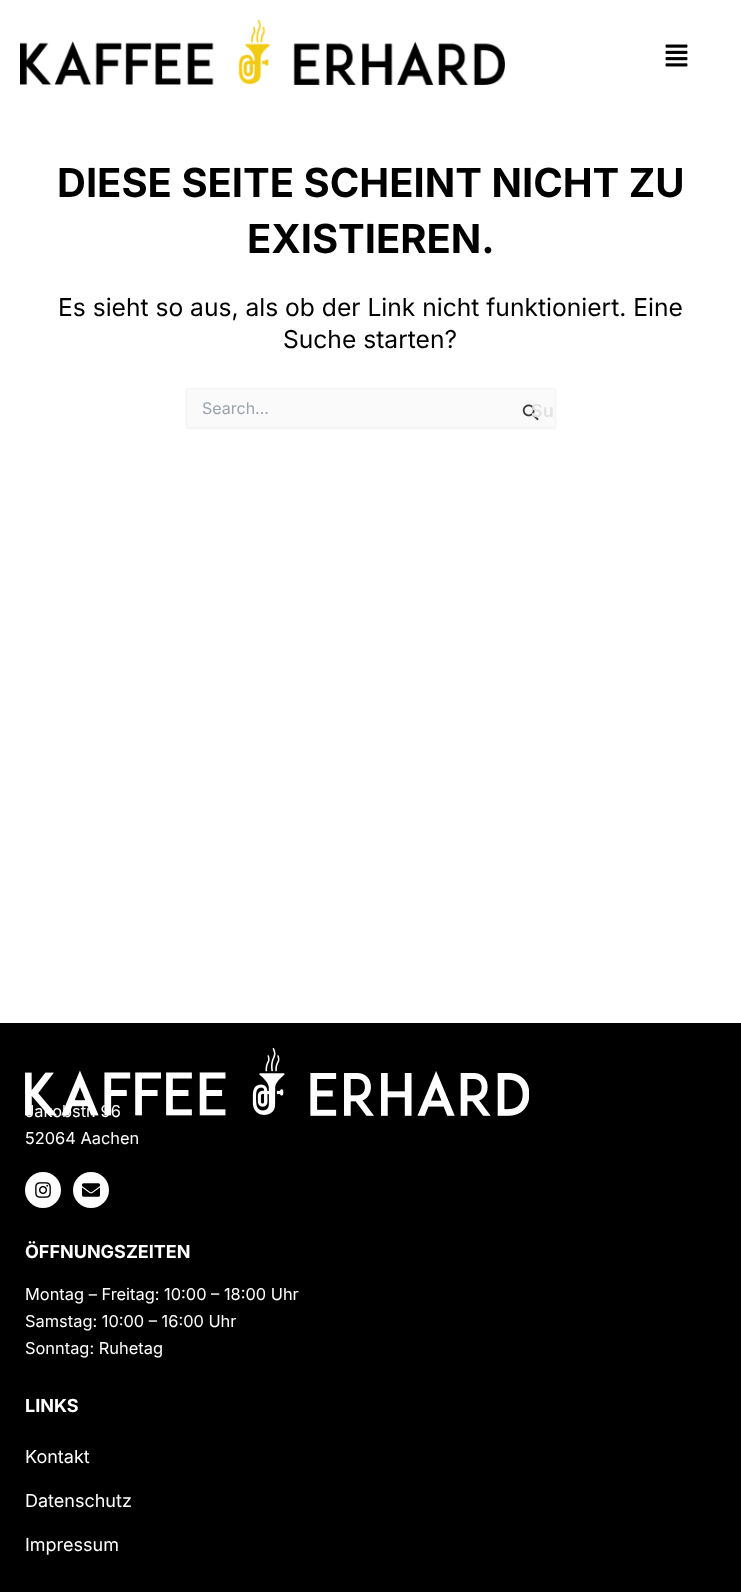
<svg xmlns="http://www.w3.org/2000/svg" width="741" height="1592">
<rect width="100%" height="100%" fill="#fff"/>
<image x="20" y="20" width="485" height="65" href="media/1.png"/>
<image x="665" y="44" width="23" height="23" href="media/2.png"/>
<text x="57" y="197" style="font-family:Inter;font-size:40px;font-weight:bold;fill:#000">DIESE SEITE SCHEINT NICHT ZU</text>
<text x="247" y="253" style="font-family:Inter;font-size:40px;font-weight:bold;fill:#000">EXISTIEREN.</text>
<text x="58" y="316" style="font-family:Inter;font-size:24.6px;fill:#000">Es sieht so aus, als ob der Link nicht funktioniert. Eine</text>
<text x="283" y="348" style="font-family:Inter;font-size:24.6px;fill:#000">Suche starten?</text>
<rect x="186" y="389" width="370" height="40" rx="2" fill="#0000000d" filter="blur(1px)"/>
<rect x="186.5" y="388.5" width="369" height="39" rx="1.5" fill="#fafafa" stroke="#f2f5f7"/>
<text x="202" y="414" style="font-family:Inter;font-size:16px;fill:#9ca3af">Search...</text>
<image x="522" y="404" width="17" height="17" href="media/3.png"/>
<text x="531" y="417" style="font-family:Inter;font-size:18px;font-weight:600;fill:#e3e3e3">Su</text>
<rect y="1023" width="741" height="569" fill="#000"/>
<image x="25" y="1048" width="504" height="68" href="media/4.png"/>
<text x="25" y="1117" style="font-family:Inter;font-size:16.4px;fill:#fff">Jakobstr. 96</text>
<text x="25" y="1144" style="font-family:Inter;font-size:16.4px;fill:#fff">52064 Aachen</text>
<circle cx="43" cy="1190" r="18" fill="#fff"/>
<image x="35" y="1182" width="16" height="16" href="media/5.png"/>
<circle cx="91" cy="1190" r="18" fill="#fff"/>
<image x="82" y="1183" width="18" height="14" href="media/6.png"/>
<text x="25" y="1258" style="font-family:Inter;font-size:18px;font-weight:bold;fill:#fff">ÖFFNUNGSZEITEN</text>
<text x="25" y="1300" style="font-family:Inter;font-size:16.4px;fill:#fff">Montag – Freitag: 10:00 – 18:00 Uhr</text>
<text x="25" y="1327" style="font-family:Inter;font-size:16.4px;fill:#fff">Samstag: 10:00 – 16:00 Uhr</text>
<text x="25" y="1354" style="font-family:Inter;font-size:16.4px;fill:#fff">Sonntag: Ruhetag</text>
<text x="25" y="1412" style="font-family:Inter;font-size:18px;font-weight:bold;fill:#fff">LINKS</text>
<text x="25" y="1463" style="font-family:Inter;font-size:18px;fill:#fff">Kontakt</text>
<text x="25" y="1507" style="font-family:Inter;font-size:18px;fill:#fff">Datenschutz</text>
<text x="25" y="1551" style="font-family:Inter;font-size:18px;fill:#fff">Impressum</text>
</svg>
